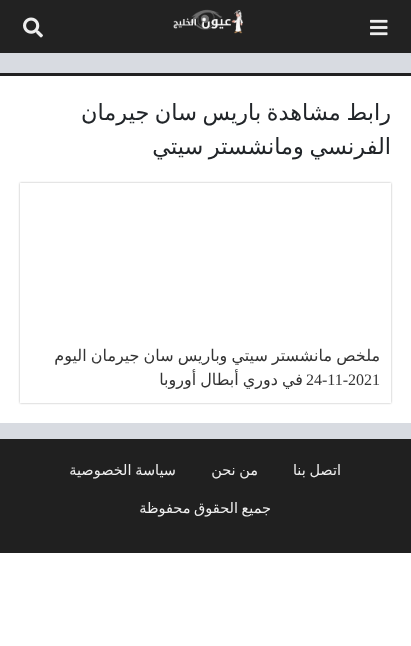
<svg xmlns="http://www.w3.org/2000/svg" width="411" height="646">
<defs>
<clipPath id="clip1"><path d="M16 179h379v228h-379zm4 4h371v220h-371z" clip-rule="evenodd"/></clipPath>
</defs>
<rect width="100%" height="100%" fill="#fff"/>
<rect y="53" width="411" height="386" fill="#d8dbe1"/>
<rect width="411" height="53" fill="#222"/>
<image x="370" y="19" width="18" height="17" href="media/1.png"/>
<image x="173" y="9" width="70" height="25" href="media/2.png"/>
<image x="23" y="17" width="20" height="21" href="media/3.png"/>
<rect y="76" width="411" height="347" fill="#fff"/>
<rect y="73" width="411" height="3" fill="#212121"/>
<text x="391" y="120" word-spacing="-1.5" style="font-family:DejaVu Sans;font-size:22.4px;direction:rtl;fill:#212529">رابط مشاهدة باريس سان جيرمان</text>
<text x="391" y="154" word-spacing="-1.5" style="font-family:DejaVu Sans;font-size:22.4px;direction:rtl;fill:#212529">الفرنسي ومانشستر سيتي</text>
<g clip-path="url(#clip1)">
<rect x="20" y="183" width="371" height="220" fill="#0000004d" filter="blur(1px)"/>
</g>
<text x="380" y="361" style="font-family:DejaVu Sans;font-size:16px;direction:rtl;fill:#333">ملخص</text>
<text x="332" y="361" word-spacing="-1" style="font-family:DejaVu Sans;font-size:16px;direction:rtl;fill:#333">مانشستر سيتي وباريس سان جيرمان اليوم</text>
<text x="306" y="385" style="font-family:Liberation Serif;font-size:16px;fill:#333">24-11-2021</text>
<text x="303" y="385" word-spacing="-1" style="font-family:DejaVu Sans;font-size:16px;direction:rtl;fill:#333">في دوري أبطال أوروبا</text>
<rect y="439" width="411" height="114" fill="#202020"/>
<text x="341" y="475" word-spacing="-1" style="font-family:DejaVu Sans;font-size:14.5px;direction:rtl;fill:#eee">اتصل بنا</text>
<text x="258" y="475" word-spacing="-1" style="font-family:DejaVu Sans;font-size:14.5px;direction:rtl;fill:#eee">من نحن</text>
<text x="176" y="475" word-spacing="-1" style="font-family:DejaVu Sans;font-size:14.5px;direction:rtl;fill:#eee">سياسة الخصوصية</text>
<text x="271" y="513" word-spacing="-1" style="font-family:DejaVu Sans;font-size:14.5px;direction:rtl;fill:#eee">جميع الحقوق محفوظة</text>
</svg>
